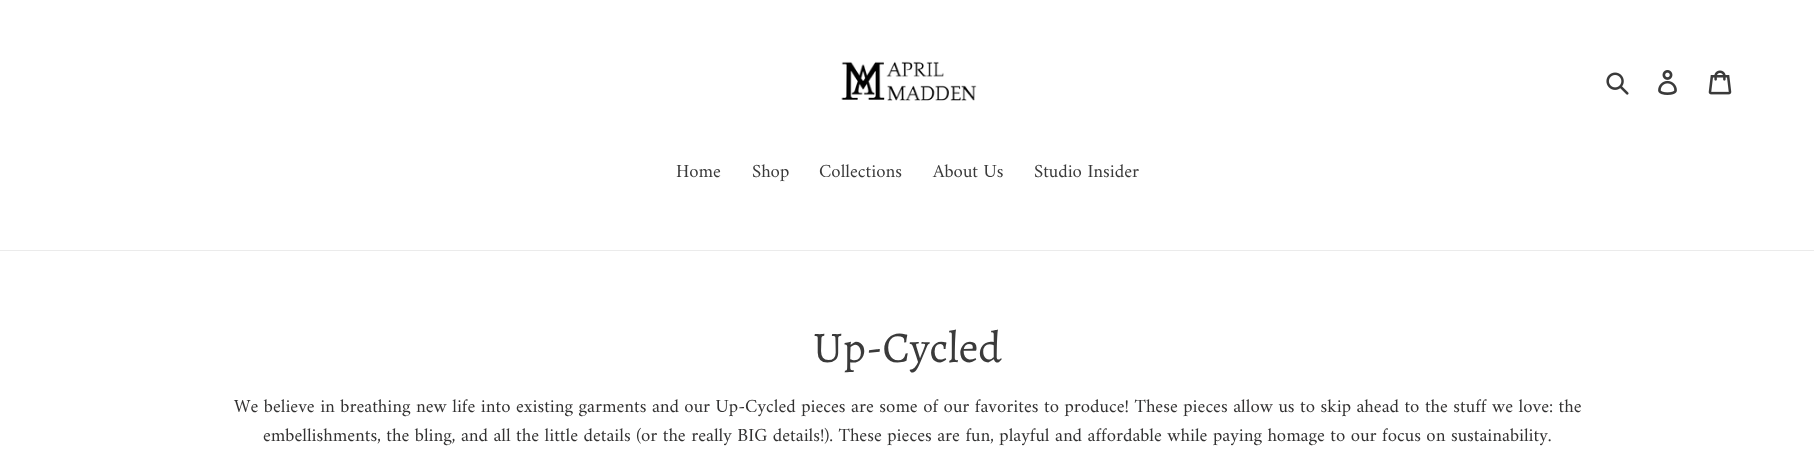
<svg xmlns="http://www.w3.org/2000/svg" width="1814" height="466">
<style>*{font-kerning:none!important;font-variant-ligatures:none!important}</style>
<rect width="100%" height="100%" fill="#fff"/>
<image x="841" y="61" width="136" height="40" href="media/1.png"/>
<image x="1606" y="72" width="23" height="23" href="media/2.png"/>
<image x="1658" y="70" width="19" height="25" href="media/3.png"/>
<image x="1708" y="70" width="24" height="25" href="media/4.png"/>
<rect y="250" width="1814" height="1" fill="#ebebeb"/>
<text x="676" y="177" style="font-family:Amiri;font-size:18.75px;fill:#3a3a3a">Home</text>
<text x="752" y="177" style="font-family:Amiri;font-size:18.75px;fill:#3a3a3a">Shop</text>
<text x="819" y="177" style="font-family:Amiri;font-size:18.75px;fill:#3a3a3a">Collections</text>
<text x="933" y="177" style="font-family:Amiri;font-size:18.75px;fill:#3a3a3a">About Us</text>
<text x="1034" y="177" style="font-family:Amiri;font-size:18.75px;fill:#3a3a3a">Studio Insider</text>
<text x="813" y="362" style="font-family:Alegreya;font-size:43.75px;fill:#3a3a3a">Up-Cycled</text>
<text x="234" y="412" style="font-family:Amiri;font-size:18.75px;fill:#333232">We believe in breathing new life into existing garments and our Up-Cycled pieces are some of our favorites to produce! These pieces allow us to skip ahead to the stuff</text>
<text x="1492" y="412" style="font-family:Amiri;font-size:18.75px;fill:#333232">we love: the</text>
<text x="263" y="441" style="font-family:Amiri;font-size:18.75px;fill:#333232">embellishments, the bling, and all the little details (or the really BIG details!). These pieces are fun, playful and affordable while paying homage to our focus on sustainability.</text>
</svg>
